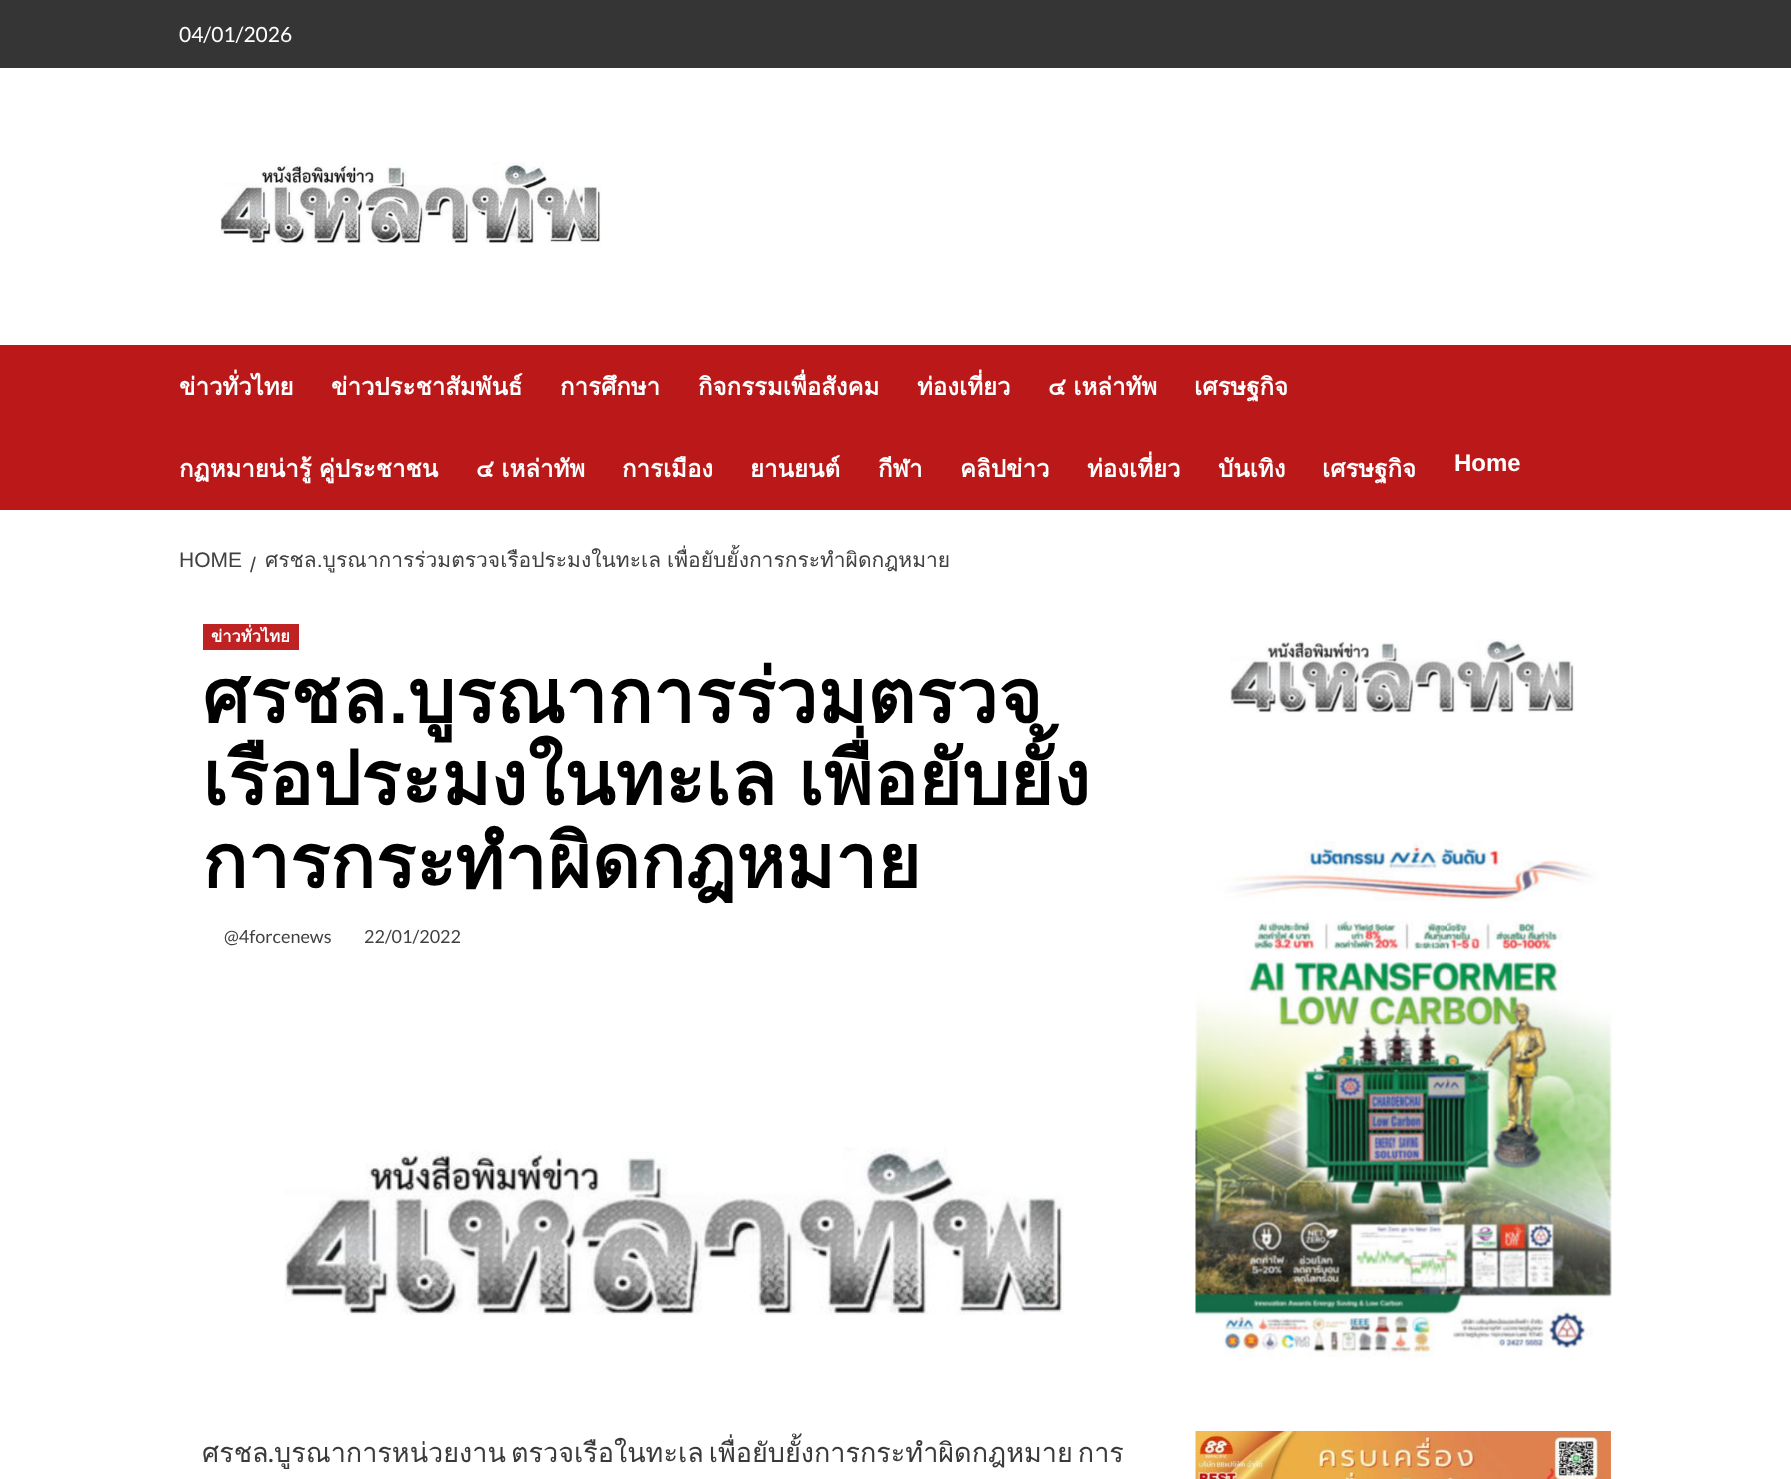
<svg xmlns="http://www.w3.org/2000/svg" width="1791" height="1479">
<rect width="100%" height="100%" fill="#fff"/>
<rect width="1791" height="68" fill="#353535"/>
<text x="179" y="42" style="font-family:Lato;font-size:21px;fill:#fff">04/01/2026</text>
<image x="220" y="162" width="381" height="82" href="media/1.png"/>
<rect y="345" width="1791" height="165" fill="#bb1919"/>
<text x="179" y="395" style="font-family:Loma;font-size:24px;font-weight:bold;fill:#fff">ข่าวทั่วไทย</text>
<text x="331" y="395" style="font-family:Loma;font-size:24px;font-weight:bold;fill:#fff">ข่าวประชาสัมพันธ์</text>
<text x="560" y="395" style="font-family:Loma;font-size:24px;font-weight:bold;fill:#fff">การศึกษา</text>
<text x="698" y="395" style="font-family:Loma;font-size:24px;font-weight:bold;fill:#fff">กิจกรรมเพื่อสังคม</text>
<text x="917" y="395" style="font-family:Loma;font-size:24px;font-weight:bold;fill:#fff">ท่องเที่ยว</text>
<text x="1048" y="395" word-spacing="-1" style="font-family:Loma;font-size:24px;font-weight:bold;fill:#fff">๔ เหล่าทัพ</text>
<text x="1194" y="395" style="font-family:Loma;font-size:24px;font-weight:bold;fill:#fff">เศรษฐกิจ</text>
<text x="179" y="477" word-spacing="-1" style="font-family:Loma;font-size:24px;font-weight:bold;fill:#fff">กฏหมายน่ารู้ คู่ประชาชน</text>
<text x="476" y="477" word-spacing="-1" style="font-family:Loma;font-size:24px;font-weight:bold;fill:#fff">๔ เหล่าทัพ</text>
<text x="622" y="477" style="font-family:Loma;font-size:24px;font-weight:bold;fill:#fff">การเมือง</text>
<text x="750" y="477" style="font-family:Loma;font-size:24px;font-weight:bold;fill:#fff">ยานยนต์</text>
<text x="878" y="477" style="font-family:Loma;font-size:24px;font-weight:bold;fill:#fff">กีฬา</text>
<text x="960" y="477" style="font-family:Loma;font-size:24px;font-weight:bold;fill:#fff">คลิปข่าว</text>
<text x="1087" y="477" style="font-family:Loma;font-size:24px;font-weight:bold;fill:#fff">ท่องเที่ยว</text>
<text x="1218" y="477" style="font-family:Loma;font-size:24px;font-weight:bold;fill:#fff">บันเทิง</text>
<text x="1322" y="477" style="font-family:Loma;font-size:24px;font-weight:bold;fill:#fff">เศรษฐกิจ</text>
<text x="1454" y="471" style="font-family:Liberation Sans;font-size:24px;font-weight:bold;fill:#fff">Home</text>
<text x="179" y="567" style="font-family:Liberation Sans;font-size:21px;fill:#404040">HOME</text>
<text x="250" y="572" style="font-family:Liberation Sans;font-size:21px;fill:#404040">/</text>
<text x="265" y="567" word-spacing="-1" style="font-family:Loma;font-size:21px;fill:#404040">ศรชล.บูรณาการร่วมตรวจเรือประมงในทะเล เพื่อยับยั้งการกระทำผิดกฎหมาย</text>
<rect x="203" y="624" width="96" height="26" fill="#be2222"/>
<text x="211" y="642" style="font-family:Loma;font-size:16.5px;font-weight:bold;fill:#fff">ข่าวทั่วไทย</text>
<text x="202" y="723" style="font-family:Loma;font-size:75px;font-weight:bold;fill:#000">ศรชล.บูรณาการร่วมตรวจ</text>
<text x="202" y="805" word-spacing="-4" style="font-family:Loma;font-size:75px;font-weight:bold;fill:#000">เรือประมงในทะเล เพื่อยับยั้ง</text>
<text x="202" y="888" style="font-family:Loma;font-size:75px;font-weight:bold;fill:#000">การกระทำผิดกฎหมาย</text>
<text x="224" y="943" style="font-family:Lato;font-size:18px;fill:#404040">@4forcenews</text>
<text x="364" y="943" style="font-family:Lato;font-size:18px;fill:#404040">22/01/2022</text>
<image x="284" y="1147" width="780" height="168" href="media/2.png"/>
<text x="202" y="1462" style="font-family:Loma;font-size:27px;fill:#3a3a3a">ศรชล</text>
<text x="268" y="1462" style="font-family:Lato;font-size:27px;fill:#3a3a3a">.</text>
<text x="274" y="1462" word-spacing="-4" style="font-family:Loma;font-size:27px;fill:#3a3a3a">บูรณาการหน่วยงาน ตรวจเรือในทะเล เพื่อยับยั้งการกระทำผิดกฎหมาย การ</text>
<image x="1230" y="639" width="344" height="74" href="media/3.png"/>
<image x="1195" y="841" width="417" height="517" href="media/4.png"/>
<image x="1195" y="1431" width="416" height="48" href="media/5.png"/>
</svg>
